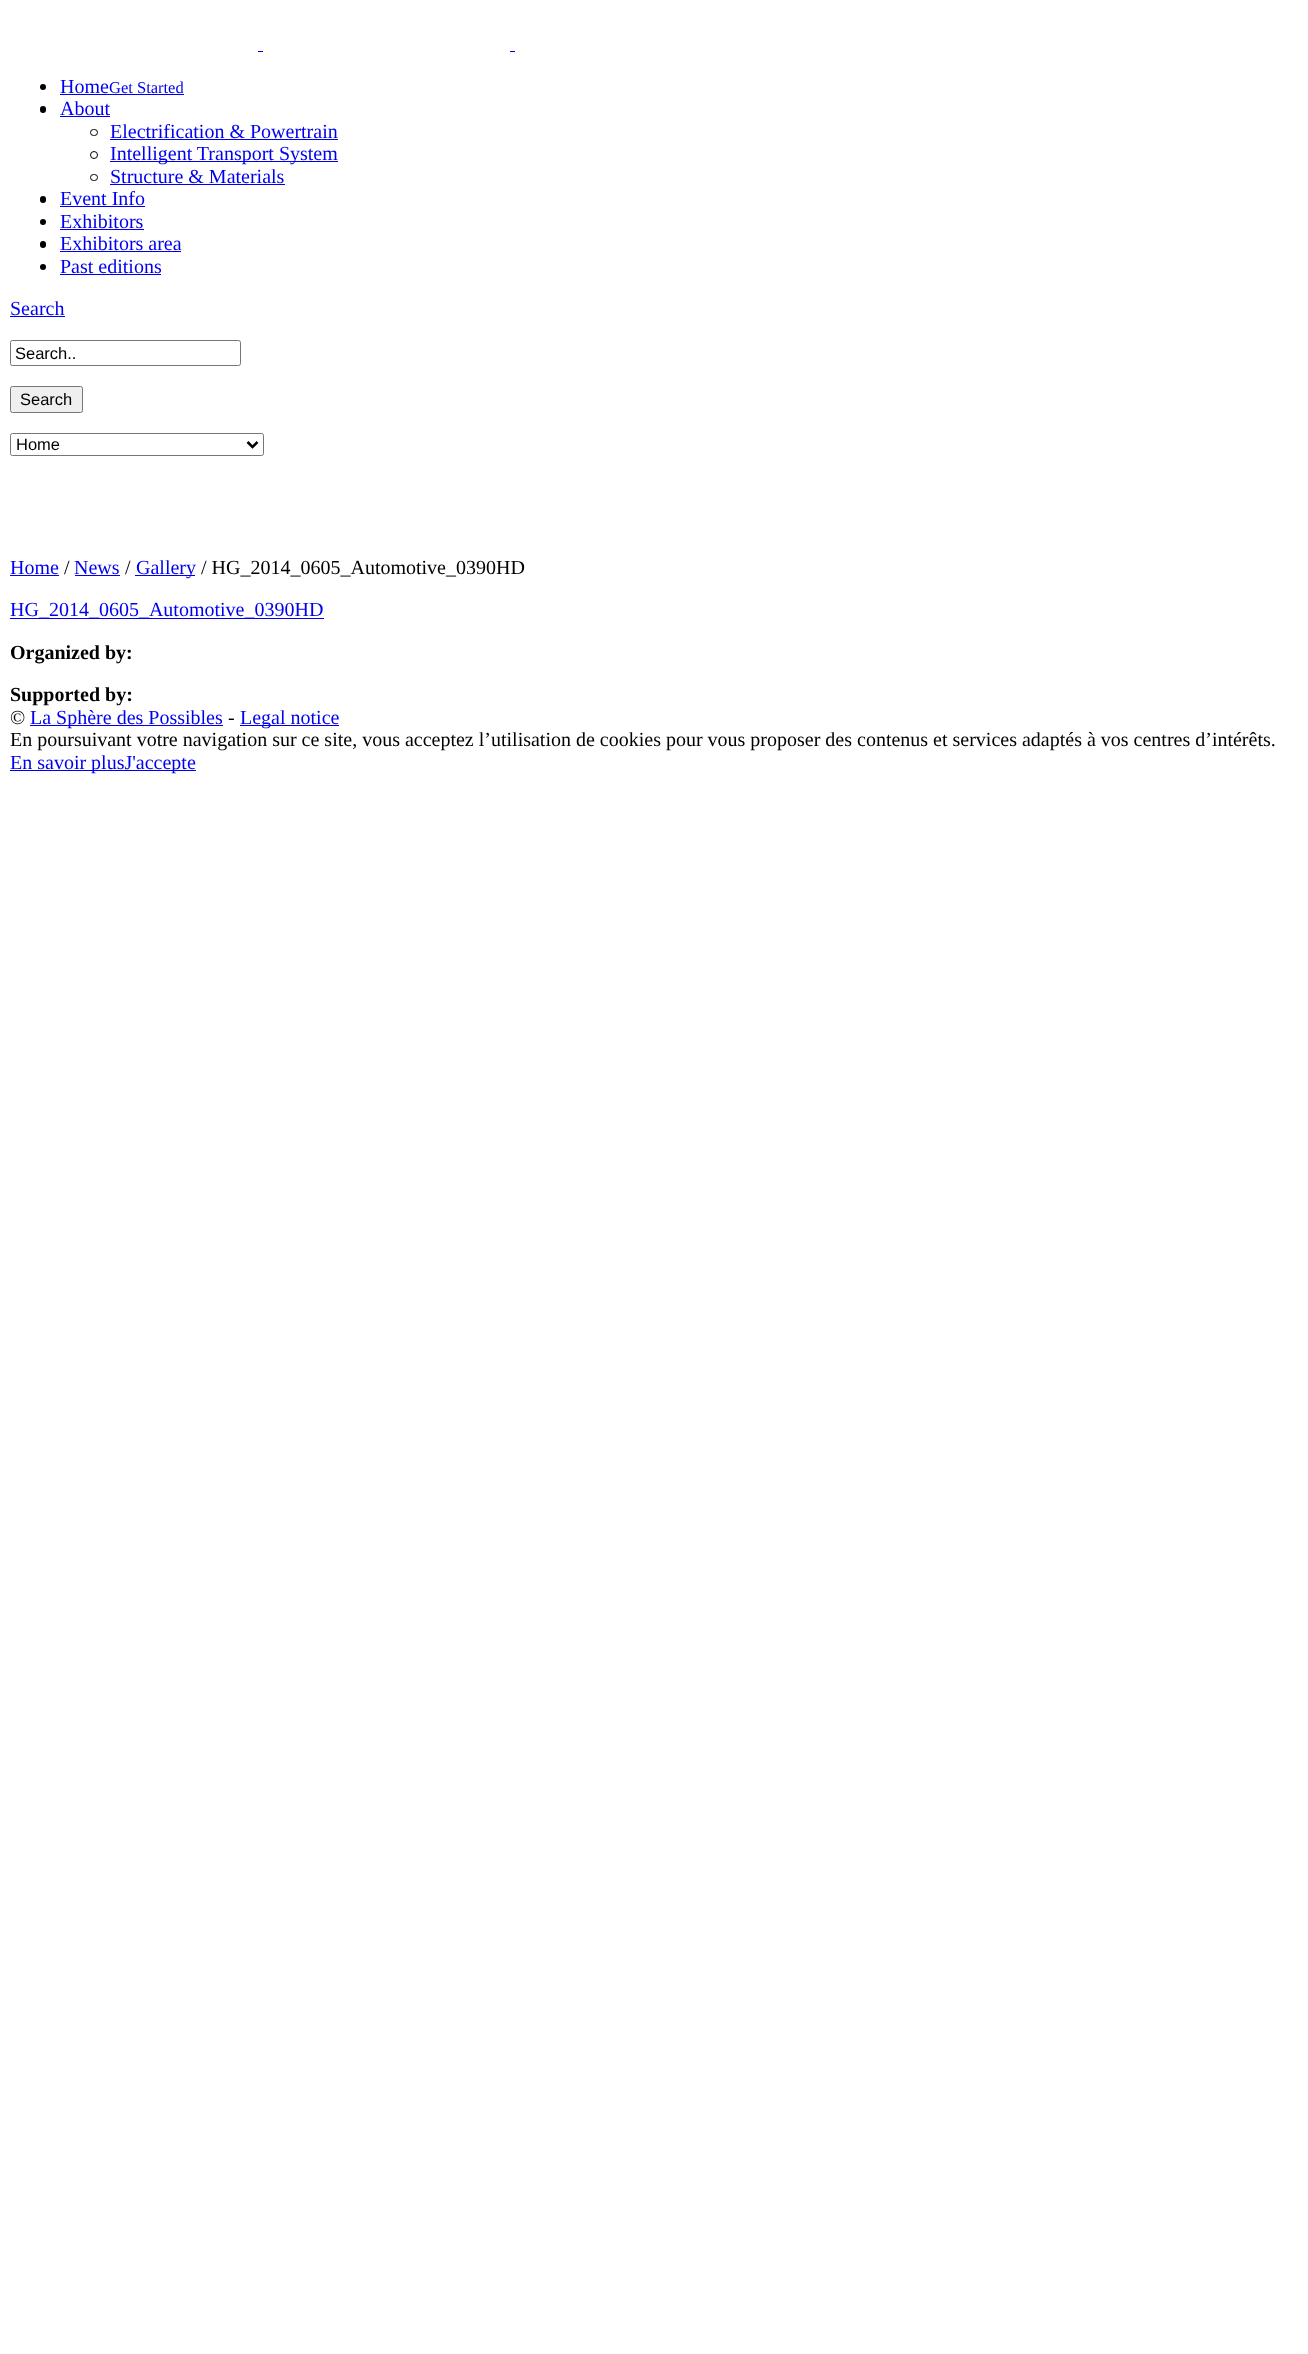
<svg xmlns="http://www.w3.org/2000/svg" width="1308" height="2354">
<rect width="100%" height="100%" fill="#fff"/>
<rect x="258" y="51" width="5" height="1" fill="#00e"/>
<rect x="510" y="51" width="5" height="1" fill="#00e"/>
<circle cx="43" cy="87" r="3" fill="#000"/>
<text x="60" y="93" style="font-family:Liberation Serif;font-size:20px;fill:#00e">Home</text>
<text x="109" y="93" style="font-family:Liberation Serif;font-size:16.5px;fill:#00e">Get Started</text>
<rect x="60" y="94" width="124" height="1" fill="#00e"/>
<rect x="40" y="106" width="6" height="7" rx="3" fill="#000"/>
<text x="60" y="115" style="font-family:Liberation Serif;font-size:20px;fill:#00e">About</text>
<rect x="60" y="116" width="50" height="1" fill="#00e"/>
<rect x="90.5" y="129.5" width="7" height="6" rx="3" fill="none" stroke="#000"/>
<text x="110" y="138" style="font-family:Liberation Serif;font-size:20px;fill:#00e">Electrification &amp; Powertrain</text>
<rect x="110" y="139" width="228" height="1" fill="#00e"/>
<circle cx="94" cy="155" r="3.5" fill="none" stroke="#000"/>
<rect x="110" y="161" width="228" height="1" fill="#00e"/>
<text x="110" y="160" style="font-family:Liberation Serif;font-size:20px;fill:#00e">Intelligent Transport System</text>
<rect x="90.5" y="174.5" width="7" height="6" rx="3" fill="none" stroke="#000"/>
<text x="110" y="183" style="font-family:Liberation Serif;font-size:20px;fill:#00e">Structure &amp; Materials</text>
<rect x="110" y="184" width="175" height="1" fill="#00e"/>
<rect x="40" y="196" width="6" height="7" rx="3" fill="#000"/>
<text x="60" y="205" style="font-family:Liberation Serif;font-size:20px;fill:#00e">Event Info</text>
<rect x="60" y="206" width="85" height="1" fill="#00e"/>
<circle cx="43" cy="222" r="3" fill="#000"/>
<text x="60" y="228" style="font-family:Liberation Serif;font-size:20px;fill:#00e">Exhibitors</text>
<rect x="60" y="229" width="84" height="1" fill="#00e"/>
<rect x="40" y="241" width="6" height="7" rx="3" fill="#000"/>
<text x="60" y="250" style="font-family:Liberation Serif;font-size:20px;fill:#00e">Exhibitors area</text>
<rect x="60" y="251" width="121" height="1" fill="#00e"/>
<circle cx="43" cy="267" r="3" fill="#000"/>
<text x="60" y="273" style="font-family:Liberation Serif;font-size:20px;fill:#00e">Past editions</text>
<rect x="60" y="274" width="101" height="1" fill="#00e"/>
<text x="10" y="315" style="font-family:Liberation Serif;font-size:20px;fill:#00e">Search</text>
<rect x="10" y="316" width="55" height="1" fill="#00e"/>
<rect x="10.5" y="340.5" width="230" height="25" rx="2" fill="none" stroke="#767676"/>
<text x="15" y="359" style="font-family:Liberation Sans;font-size:16.5px;fill:#000">Search..</text>
<rect x="10.5" y="386.5" width="72" height="26" rx="2" fill="#efefef" stroke="#767676"/>
<text x="20" y="405" style="font-family:Liberation Sans;font-size:16.5px;fill:#000">Search</text>
<rect x="10.5" y="433.5" width="253" height="22" rx="2" fill="none" stroke="#767676"/>
<path d="M247.5 442l5 5l5-5" fill="none" stroke="#000" stroke-width="2.5"/>
<text x="16" y="450" style="font-family:Liberation Sans;font-size:16.5px;fill:#000">Home</text>
<text x="10" y="574" style="font-family:Liberation Serif;font-size:20px;fill:#00e">Home</text>
<rect x="10" y="575" width="49" height="1" fill="#00e"/>
<text x="64" y="574" style="font-family:Liberation Serif;font-size:20px;fill:#000">/</text>
<text x="74" y="574" style="font-family:Liberation Serif;font-size:20px;fill:#00e">News</text>
<rect x="75" y="575" width="45" height="1" fill="#00e"/>
<text x="125" y="574" style="font-family:Liberation Serif;font-size:20px;fill:#000">/</text>
<rect x="135" y="575" width="60" height="1" fill="#00e"/>
<text x="136" y="574" style="font-family:Liberation Serif;font-size:20px;fill:#00e">Gallery</text>
<text x="201" y="574" style="font-family:Liberation Serif;font-size:20px;fill:#000">/ HG_2014_0605_Automotive_0390HD</text>
<rect x="10" y="618" width="314" height="1" fill="#00e"/>
<text x="10" y="616" style="font-family:Liberation Serif;font-size:20px;fill:#00e">HG_2014_0605_Automotive_0390HD</text>
<text x="10" y="659" style="font-family:Liberation Serif;font-size:20px;font-weight:bold;fill:#000">Organized by:</text>
<text x="10" y="701" style="font-family:Liberation Serif;font-size:20px;font-weight:bold;fill:#000">Supported by:</text>
<text x="10" y="724" style="font-family:Liberation Serif;font-size:20px;fill:#000">©</text>
<rect x="30" y="725" width="193" height="1" fill="#00e"/>
<text x="30" y="724" style="font-family:Liberation Serif;font-size:20px;fill:#00e">La Sphère des Possibles</text>
<text x="228" y="724" style="font-family:Liberation Serif;font-size:20px;fill:#000">-</text>
<rect x="240" y="725" width="99" height="1" fill="#00e"/>
<text x="240" y="724" style="font-family:Liberation Serif;font-size:20px;fill:#00e">Legal notice</text>
<text x="10" y="746" style="font-family:Liberation Serif;font-size:20px;fill:#000">En poursuivant votre navigation sur ce site, vous acceptez l’utilisation de cookies pour vous proposer des contenus et services adaptés à vos centres d’intérêts.</text>
<rect x="10" y="770" width="186" height="1" fill="#00e"/>
<text x="10" y="769" style="font-family:Liberation Serif;font-size:20px;fill:#00e">En savoir plusJ'accepte</text>
</svg>
